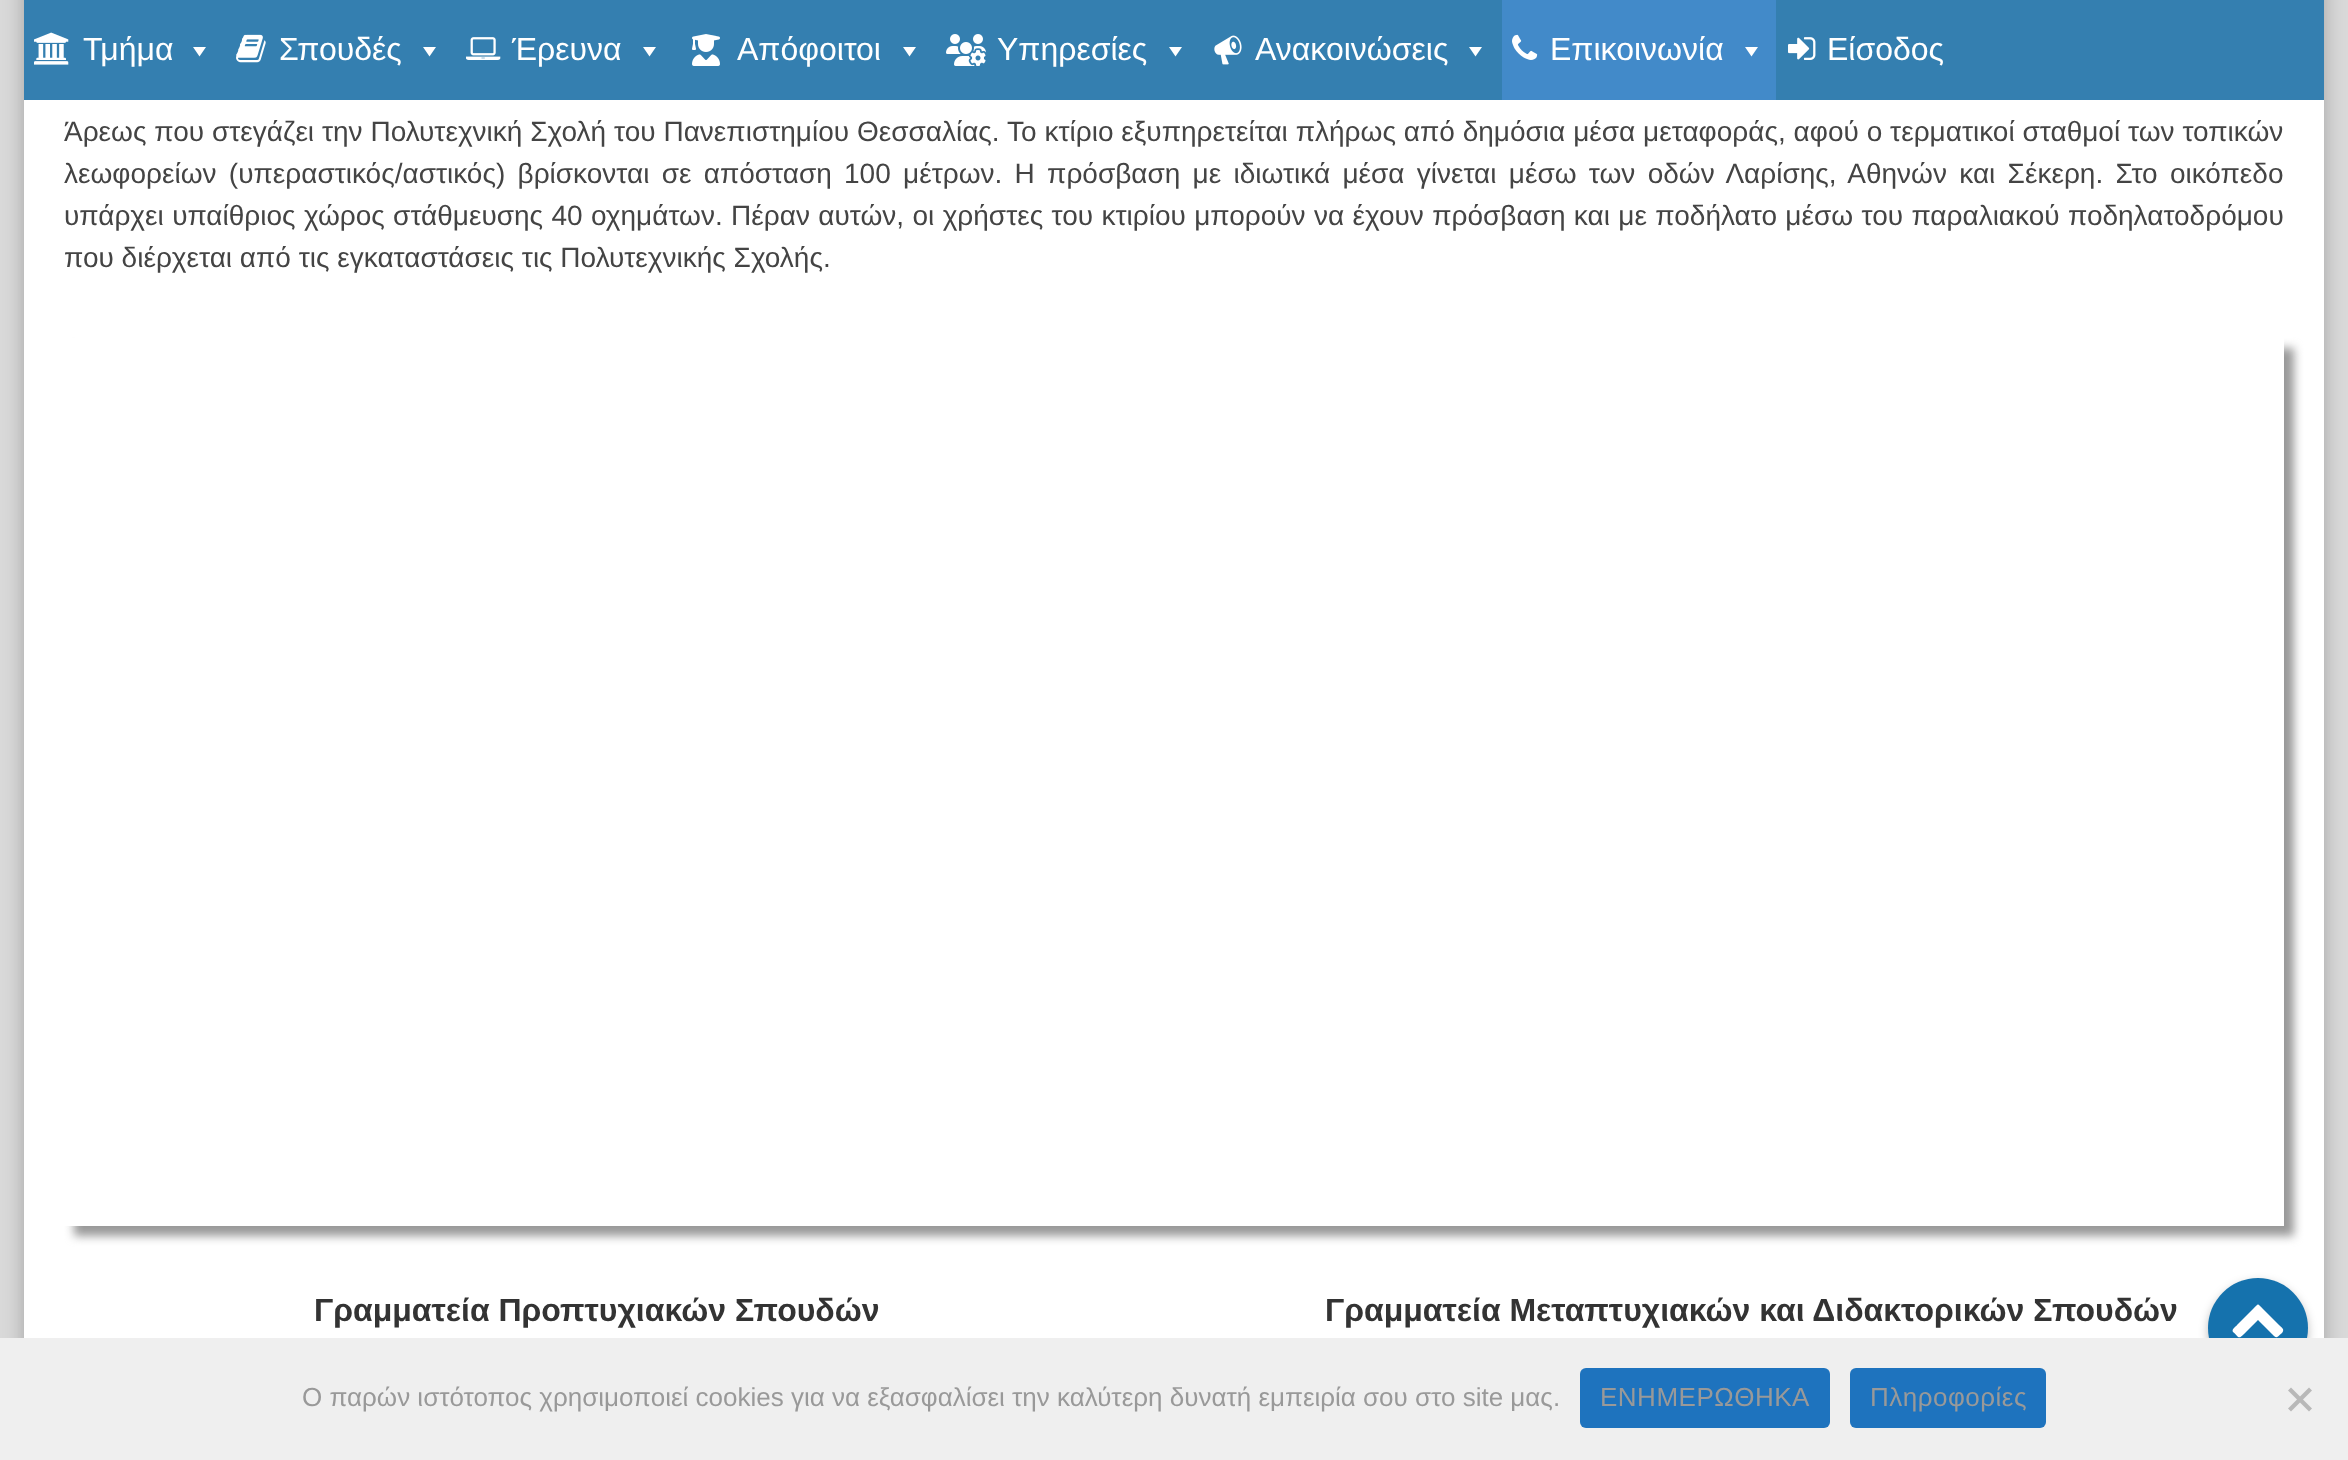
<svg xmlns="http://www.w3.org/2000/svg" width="2348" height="1460">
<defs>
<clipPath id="clip1"><path d="M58 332h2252v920h-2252zm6 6h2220v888h-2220z" clip-rule="evenodd"/></clipPath>
</defs>
<rect width="100%" height="100%" fill="#d9d9d9"/>
<rect x="24" y="-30" width="2300" height="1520" fill="#00000040" filter="blur(10px)"/>
<rect x="24" width="2300" height="100" fill="#347fb0"/>
<image x="34" y="32" width="35" height="33" href="media/1.png"/>
<text x="83" y="60" style="font-family:Liberation Sans;font-size:32px;fill:#fff">Τμήμα</text>
<path d="M206 47l-6.5 9.5l-6.5-9.5z" fill="#fff"/>
<image x="236" y="34" width="30" height="29" href="media/2.png"/>
<text x="279" y="60" style="font-family:Liberation Sans;font-size:32px;fill:#fff">Σπουδές</text>
<path d="M436 47l-6.5 9.5l-6.5-9.5z" fill="#fff"/>
<image x="466" y="37" width="35" height="23" href="media/3.png"/>
<text x="512" y="60" style="font-family:Liberation Sans;font-size:32px;fill:#fff">Έρευνα</text>
<path d="M656 47l-6.5 9.5l-6.5-9.5z" fill="#fff"/>
<image x="692" y="34" width="28" height="32" href="media/4.png"/>
<text x="737" y="60" style="font-family:Liberation Sans;font-size:32px;fill:#fff">Απόφοιτοι</text>
<path d="M916 47l-6.5 9.5l-6.5-9.5z" fill="#fff"/>
<image x="946" y="34" width="40" height="32" href="media/5.png"/>
<text x="997" y="60" style="font-family:Liberation Sans;font-size:32px;fill:#fff">Υπηρεσίες</text>
<path d="M1182 47l-6.5 9.5l-6.5-9.5z" fill="#fff"/>
<image x="1214" y="35" width="28" height="30" href="media/6.png"/>
<text x="1255" y="60" style="font-family:Liberation Sans;font-size:32px;fill:#fff">Ανακοινώσεις</text>
<path d="M1482 47l-6.5 9.5l-6.5-9.5z" fill="#fff"/>
<rect x="1502" width="274" height="100" fill="#428ac9"/>
<image x="1512" y="34" width="26" height="26" href="media/7.png"/>
<text x="1550" y="60" style="font-family:Liberation Sans;font-size:32px;fill:#fff">Επικοινωνία</text>
<path d="M1758 47l-6.5 9.5l-6.5-9.5z" fill="#fff"/>
<image x="1788" y="37" width="28" height="23" href="media/8.png"/>
<text x="1827" y="60" style="font-family:Liberation Sans;font-size:32px;fill:#fff">Είσοδος</text>
<rect x="24" y="100" width="2300" height="1238" fill="#fff"/>
<text x="64" y="141" word-spacing="0.1" style="font-family:Liberation Sans;font-size:28px;fill:#444">Άρεως που στεγάζει την Πολυτεχνική Σχολή του Πανεπιστημίου Θεσσαλίας. Το κτίριο εξυπηρετείται πλήρως από δημόσια μέσα μεταφοράς, αφού ο τερματικοί σταθμοί των τοπικών</text>
<text x="64" y="183" word-spacing="4.5" style="font-family:Liberation Sans;font-size:28px;fill:#444">λεωφορείων (υπεραστικός/αστικός) βρίσκονται σε απόσταση 100 μέτρων. Η πρόσβαση με ιδιωτικά μέσα γίνεται μέσω των οδών Λαρίσης, Αθηνών και Σέκερη. Στο οικόπεδο</text>
<text x="64" y="225" word-spacing="0.6" style="font-family:Liberation Sans;font-size:28px;fill:#444">υπάρχει υπαίθριος χώρος στάθμευσης 40 οχημάτων. Πέραν αυτών, οι χρήστες του κτιρίου μπορούν να έχουν πρόσβαση και με ποδήλατο μέσω του παραλιακού ποδηλατοδρόμου</text>
<text x="64" y="267" style="font-family:Liberation Sans;font-size:28px;fill:#444">που διέρχεται από τις εγκαταστάσεις τις Πολυτεχνικής Σχολής.</text>
<g clip-path="url(#clip1)">
<rect x="74" y="348" width="2220" height="888" fill="#999" filter="blur(5px)"/>
</g>
<text x="314" y="1321" style="font-family:Liberation Sans;font-size:32px;font-weight:bold;fill:#333">Γραμματεία Προπτυχιακών Σπουδών</text>
<text x="1325" y="1321" style="font-family:Liberation Sans;font-size:32px;font-weight:bold;fill:#333">Γραμματεία Μεταπτυχιακών και Διδακτορικών Σπουδών</text>
<rect x="2208" y="1282" width="100" height="100" rx="50" fill="#00000042" filter="blur(5px)"/>
<circle cx="2258" cy="1328" r="50" fill="#1572ad"/>
<path d="M2233 1332c-2-3 4-6 4-7l16-16c6-6 4-6 10 0l16 16c3 3 6 4 3 8c-6 5-5 6-10 1l-14-14l-14 14c-6 6-5 3-11-2z" fill="#fff"/>
<rect y="1338" width="2348" height="122" fill="#efefef"/>
<text x="302" y="1406" style="font-family:Liberation Sans;font-size:26px;fill:#999">Ο παρών ιστότοπος χρησιμοποιεί cookies για να εξασφαλίσει την καλύτερη δυνατή εμπειρία σου στο site μας.</text>
<rect x="1580" y="1368" width="250" height="60" rx="6" fill="#1e73be"/>
<text x="1600" y="1406" style="font-family:Liberation Sans;font-size:26px;letter-spacing:0.5px;fill:#999">ΕΝΗΜΕΡΩΘΗΚΑ</text>
<rect x="1850" y="1368" width="196" height="60" rx="6" fill="#1e73be"/>
<text x="1870" y="1406" style="font-family:Liberation Sans;font-size:26px;letter-spacing:0.5px;fill:#999">Πληροφορίες</text>
<path d="M2309 1387.5l3 3l-21 21l-3-3z" fill="#b8b8b8"/>
<path d="M2288 1390.5l3-3l21 21l-3 3z" fill="#b8b8b8"/>
</svg>
